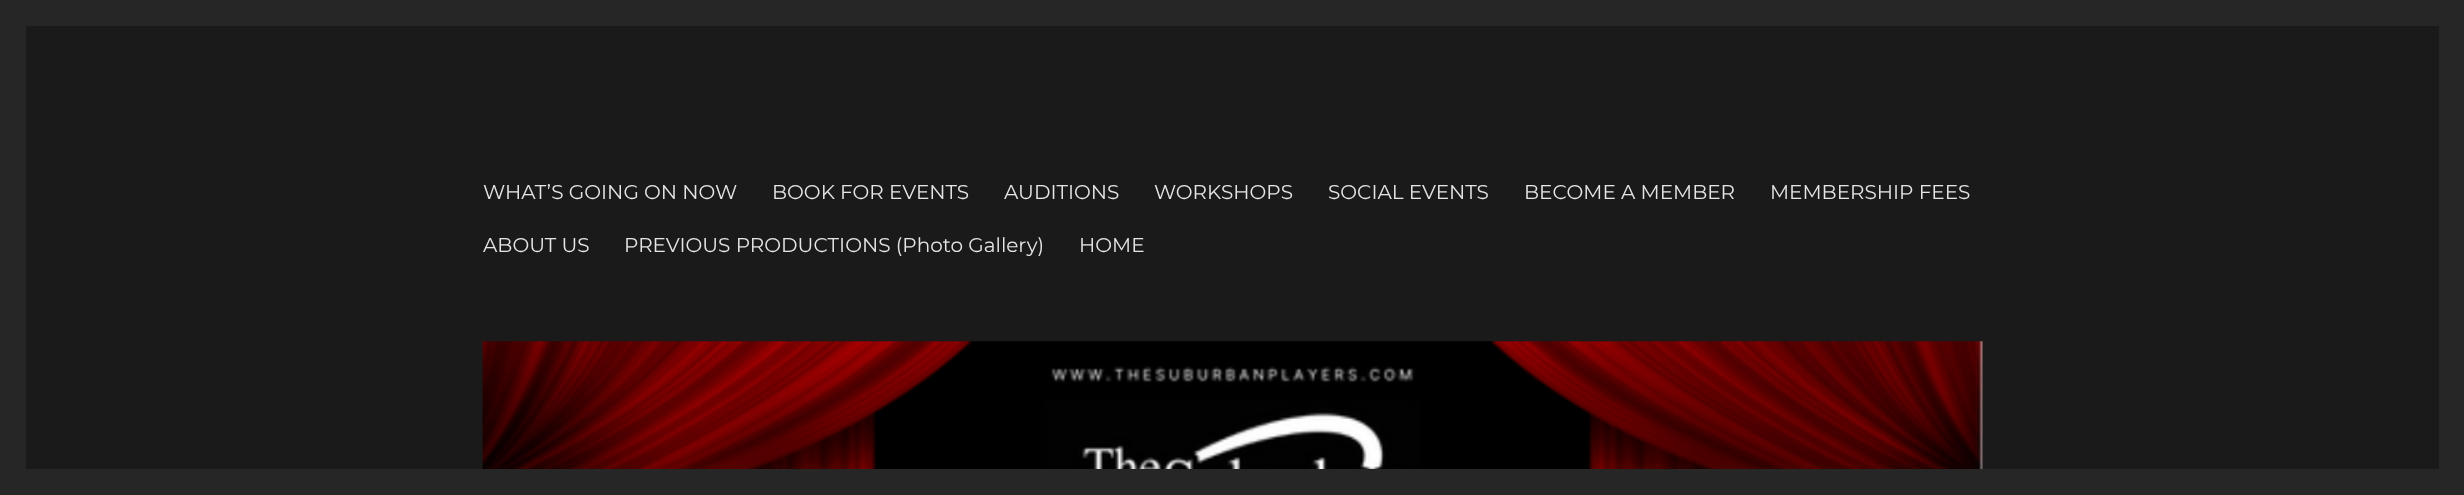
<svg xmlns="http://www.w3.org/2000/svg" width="2464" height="495">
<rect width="100%" height="100%" fill="#262626"/>
<rect x="26" y="26" width="2413" height="443" fill="#1a1a1a"/>
<text x="483" y="199" style="font-family:Montserrat;font-size:20px;font-weight:100;fill:#e5e5e5">WHAT’S GOING ON NOW</text>
<text x="772" y="199" style="font-family:Montserrat;font-size:20px;font-weight:100;fill:#e5e5e5">BOOK FOR EVENTS</text>
<text x="1004" y="199" style="font-family:Montserrat;font-size:20px;font-weight:100;fill:#e5e5e5">AUDITIONS</text>
<text x="1154" y="199" style="font-family:Montserrat;font-size:20px;font-weight:100;fill:#e5e5e5">WORKSHOPS</text>
<text x="1328" y="199" style="font-family:Montserrat;font-size:20px;font-weight:100;fill:#e5e5e5">SOCIAL EVENTS</text>
<text x="1524" y="199" style="font-family:Montserrat;font-size:20px;font-weight:100;fill:#e5e5e5">BECOME A MEMBER</text>
<text x="1770" y="199" style="font-family:Montserrat;font-size:20px;font-weight:100;fill:#e5e5e5">MEMBERSHIP FEES</text>
<text x="483" y="252" style="font-family:Montserrat;font-size:20px;font-weight:100;fill:#e5e5e5">ABOUT US</text>
<text x="624" y="252" style="font-family:Montserrat;font-size:20px;font-weight:100;fill:#e5e5e5">PREVIOUS PRODUCTIONS (Photo Gallery)</text>
<text x="1079" y="252" style="font-family:Montserrat;font-size:20px;font-weight:100;fill:#e5e5e5">HOME</text>
<image x="482" y="341" width="1501" height="128" href="media/1.png"/>
</svg>
